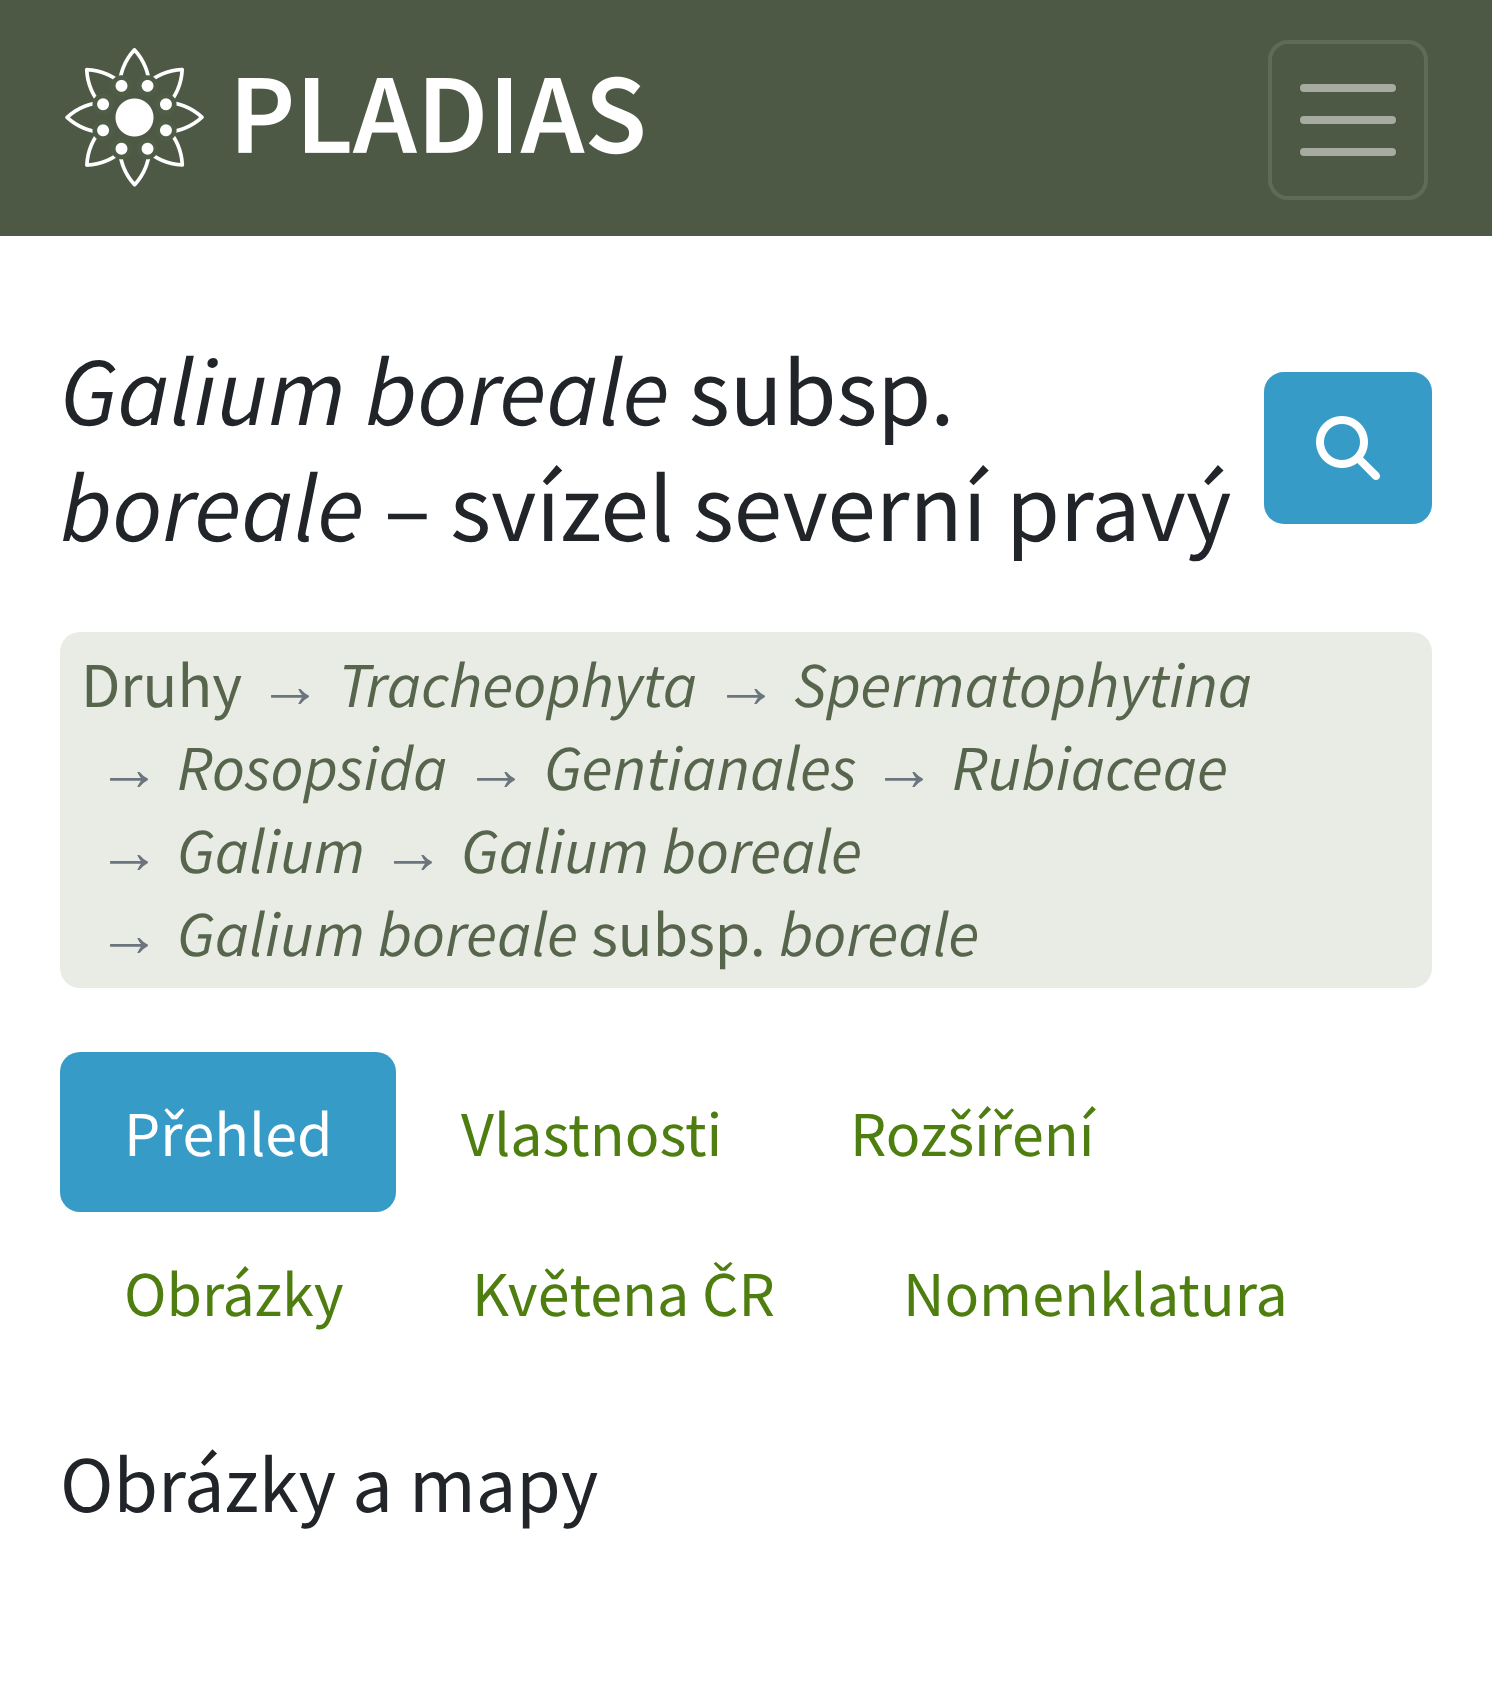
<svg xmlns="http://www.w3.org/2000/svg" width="1492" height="1694">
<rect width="100%" height="100%" fill="#fff"/>
<rect width="1492" height="236" fill="#4d5944"/>
<image x="65" y="48" width="578" height="139" href="media/1.png"/>
<rect x="1270" y="42" width="156" height="156" rx="18" fill="none" stroke="#5f6a57" stroke-width="4"/>
<path d="M1304 88h88m-88 32h88m-88 32h88" fill="none" stroke="#a6aca2" stroke-width="8" stroke-linecap="round"/>
<text x="60" y="425" style="font-family:Source Sans Pro;font-size:97.25px;font-style:italic;fill:#212529">Galium boreale</text>
<text x="689" y="425" style="font-family:Source Sans Pro;font-size:97.25px;fill:#212529">subsp.</text>
<text x="60" y="541" style="font-family:Source Sans Pro;font-size:97.25px;font-style:italic;fill:#212529">boreale</text>
<text x="384" y="541" style="font-family:Source Sans Pro;font-size:97.25px;fill:#212529">– svízel severní pravý</text>
<rect x="1266" y="374" width="164" height="148" rx="18" fill="#379bc8" stroke="#379bc8" stroke-width="4"/>
<image x="1316" y="416" width="64" height="64" href="media/2.png"/>
<rect x="60" y="632" width="1372" height="356" rx="20" fill="#e8ece5"/>
<text x="81" y="707" style="font-family:Source Sans Pro;font-size:64px;fill:#57654d">Druhy</text>
<text x="258" y="707" style="font-family:Liberation Serif;font-size:64px;fill:#6c757d">→</text>
<text x="338" y="707" style="font-family:Source Sans Pro;font-size:64px;font-style:italic;fill:#57654d">Tracheophyta</text>
<text x="714" y="707" style="font-family:Liberation Serif;font-size:64px;fill:#6c757d">→</text>
<text x="794" y="707" style="font-family:Source Sans Pro;font-size:64px;font-style:italic;fill:#57654d">Spermatophytina</text>
<text x="97" y="790" style="font-family:Liberation Serif;font-size:64px;fill:#6c757d">→</text>
<text x="177" y="790" style="font-family:Source Sans Pro;font-size:64px;font-style:italic;fill:#57654d">Rosopsida</text>
<text x="464" y="790" style="font-family:Liberation Serif;font-size:64px;fill:#6c757d">→</text>
<text x="544" y="790" style="font-family:Source Sans Pro;font-size:64px;font-style:italic;fill:#57654d">Gentianales</text>
<text x="872" y="790" style="font-family:Liberation Serif;font-size:64px;fill:#6c757d">→</text>
<text x="952" y="790" style="font-family:Source Sans Pro;font-size:64px;font-style:italic;fill:#57654d">Rubiaceae</text>
<text x="97" y="873" style="font-family:Liberation Serif;font-size:64px;fill:#6c757d">→</text>
<text x="177" y="873" style="font-family:Source Sans Pro;font-size:64px;font-style:italic;fill:#57654d">Galium</text>
<text x="381" y="873" style="font-family:Liberation Serif;font-size:64px;fill:#6c757d">→</text>
<text x="461" y="873" style="font-family:Source Sans Pro;font-size:64px;font-style:italic;fill:#57654d">Galium boreale</text>
<text x="97" y="956" style="font-family:Liberation Serif;font-size:64px;fill:#6c757d">→</text>
<text x="177" y="956" style="font-family:Source Sans Pro;font-size:64px;font-style:italic;fill:#57654d">Galium boreale</text>
<text x="591" y="956" style="font-family:Source Sans Pro;font-size:64px;fill:#57654d">subsp.</text>
<text x="779" y="956" style="font-family:Source Sans Pro;font-size:64px;font-style:italic;fill:#57654d">boreale</text>
<rect x="60" y="1052" width="336" height="160" rx="20" fill="#379bc8"/>
<text x="124" y="1156" style="font-family:Source Sans Pro;font-size:64px;fill:#fff">Přehled</text>
<text x="461" y="1156" style="font-family:Source Sans Pro;font-size:64px;fill:#4e7e0f">Vlastnosti</text>
<text x="850" y="1156" style="font-family:Source Sans Pro;font-size:64px;fill:#4e7e0f">Rozšíření</text>
<text x="124" y="1316" style="font-family:Source Sans Pro;font-size:64px;fill:#4e7e0f">Obrázky</text>
<text x="472" y="1316" style="font-family:Source Sans Pro;font-size:64px;fill:#4e7e0f">Květena ČR</text>
<text x="903" y="1316" style="font-family:Source Sans Pro;font-size:64px;fill:#4e7e0f">Nomenklatura</text>
<text x="60" y="1512" style="font-family:Source Sans Pro;font-size:80.5px;fill:#212529">Obrázky a mapy</text>
</svg>
